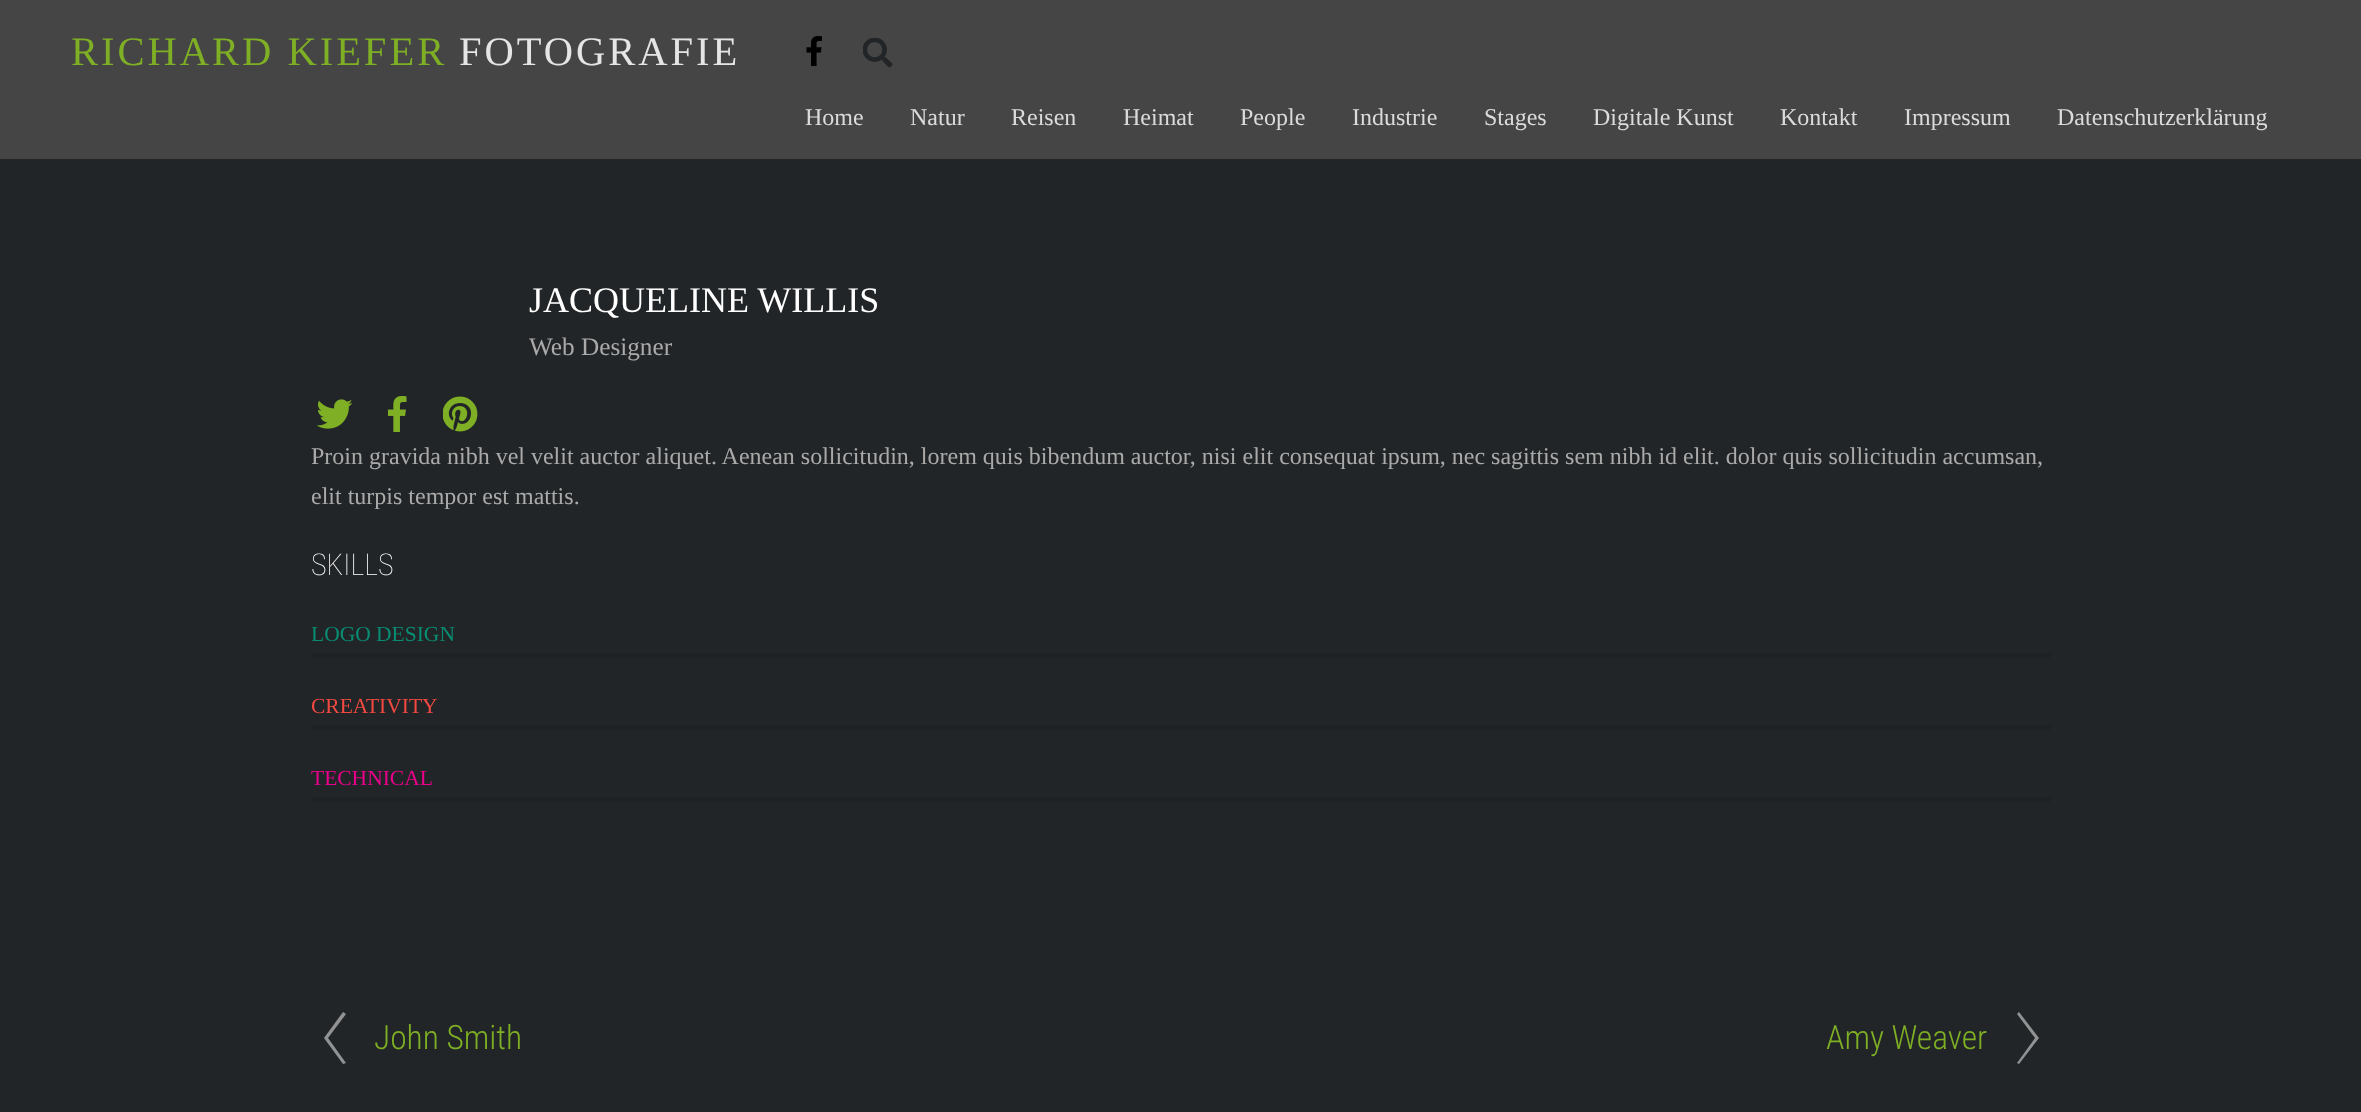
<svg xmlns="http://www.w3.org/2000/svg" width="2361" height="1112">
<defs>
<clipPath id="clip1"><rect x="311" y="615" width="1740" height="254"/></clipPath>
</defs>
<rect width="100%" height="100%" fill="#222527"/>
<rect width="2361" height="159" fill="#454545"/>
<text x="71" y="65" style="font-family:Liberation Serif;font-size:40.5px;letter-spacing:3px;fill:#7eaf24">RICHARD KIEFER</text>
<text x="459" y="65" style="font-family:Liberation Serif;font-size:40.5px;letter-spacing:3px;fill:#e5e5e5">FOTOGRAFIE</text>
<image x="806" y="36" width="16" height="30" href="media/1.png"/>
<image x="863" y="38" width="30" height="30" href="media/2.png"/>
<text x="805" y="125" style="font-family:Liberation Serif;font-size:24px;fill:#dbdbdb">Home</text>
<text x="910" y="125" style="font-family:Liberation Serif;font-size:24px;fill:#dbdbdb">Natur</text>
<text x="1011" y="125" style="font-family:Liberation Serif;font-size:24px;fill:#dbdbdb">Reisen</text>
<text x="1123" y="125" style="font-family:Liberation Serif;font-size:24px;fill:#dbdbdb">Heimat</text>
<text x="1240" y="125" style="font-family:Liberation Serif;font-size:24px;fill:#dbdbdb">People</text>
<text x="1352" y="125" style="font-family:Liberation Serif;font-size:24px;fill:#dbdbdb">Industrie</text>
<text x="1484" y="125" style="font-family:Liberation Serif;font-size:24px;fill:#dbdbdb">Stages</text>
<text x="1593" y="125" style="font-family:Liberation Serif;font-size:24px;fill:#dbdbdb">Digitale Kunst</text>
<text x="1780" y="125" style="font-family:Liberation Serif;font-size:24px;fill:#dbdbdb">Kontakt</text>
<text x="1904" y="125" style="font-family:Liberation Serif;font-size:24px;fill:#dbdbdb">Impressum</text>
<text x="2057" y="125" style="font-family:Liberation Serif;font-size:24px;fill:#dbdbdb">Datenschutzerklärung</text>
<text x="529" y="312" style="font-family:Liberation Serif;font-size:36px;fill:#fff">JACQUELINE WILLIS</text>
<text x="529" y="355" style="font-family:Liberation Serif;font-size:25.25px;fill:#aaa">Web Designer</text>
<image x="317" y="399" width="36" height="30" href="media/3.png"/>
<image x="387" y="396" width="20" height="36" href="media/4.png"/>
<image x="443" y="396" width="35" height="36" href="media/5.png"/>
<text x="311" y="464" style="font-family:Liberation Serif;font-size:24px;fill:#aaa">Proin gravida nibh vel velit auctor aliquet. Aenean sollicitudin, lorem quis bibendum auctor, nisi elit consequat ipsum, nec sagittis sem nibh id elit. dolor quis sollicitudin accumsan,</text>
<text x="311" y="504" style="font-family:Liberation Serif;font-size:24px;fill:#aaa">elit turpis tempor est mattis.</text>
<text x="311" y="575" style="font-family:Roboto Condensed;font-size:30px;font-weight:100;fill:#fff">SKILLS</text>
<rect x="311" y="653" width="1740" height="5" fill="#1f2123"/>
<text x="311" y="641" style="font-family:Liberation Serif;font-size:21.5px;fill:#088c72">LOGO DESIGN</text>
<rect x="311" y="725" width="1740" height="5" fill="#1f2123"/>
<text x="311" y="713" style="font-family:Liberation Serif;font-size:21.5px;fill:#f34941">CREATIVITY</text>
<rect x="311" y="797" width="1740" height="5" fill="#1f2123"/>
<g clip-path="url(#clip1)">
<text x="311" y="785" style="font-family:Liberation Serif;font-size:21.5px;fill:#ec008c">TECHNICAL</text>
</g>
<path d="M343 1064l-19-26l19-26l3 2l-18 24l18 25z" fill="#919293"/>
<text x="374" y="1049" style="font-family:Roboto Condensed;font-size:33.5px;font-weight:300;fill:#7eaf24">John Smith</text>
<text x="1826" y="1049" style="font-family:Roboto Condensed;font-size:33.5px;font-weight:300;fill:#7eaf24">Amy Weaver</text>
<path d="M2019 1064l-2-1l18-25l-18-24l2-2l20 26z" fill="#919293"/>
</svg>
